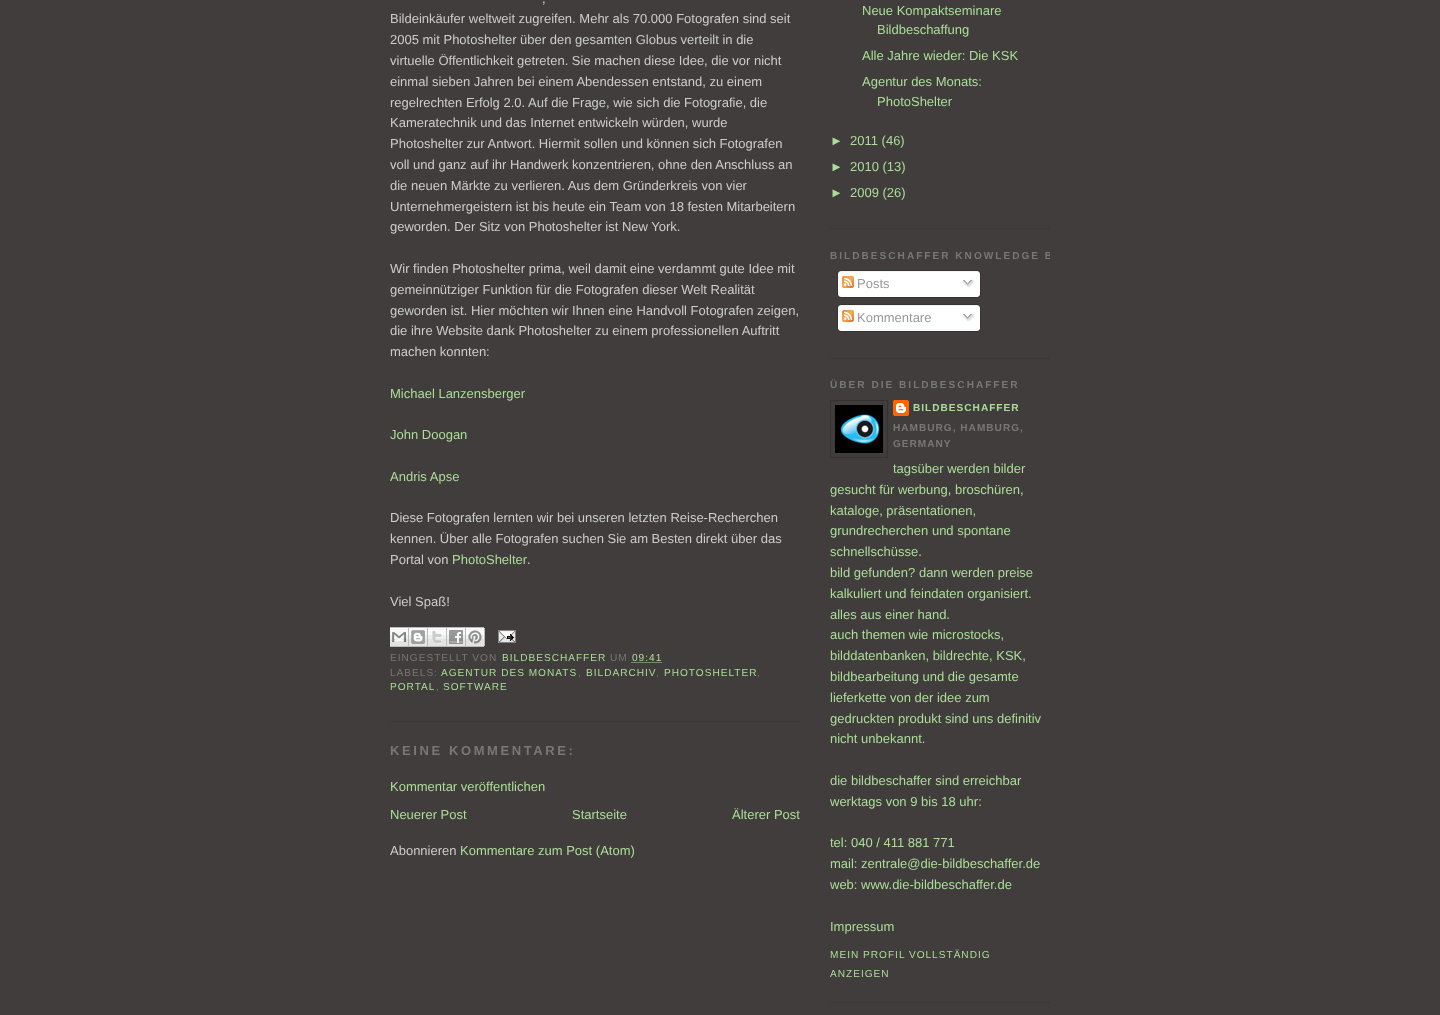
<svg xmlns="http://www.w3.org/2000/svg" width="1440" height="1015">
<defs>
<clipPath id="clip1"><rect x="830" width="220" height="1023"/></clipPath>
</defs>
<rect width="100%" height="100%" fill="#413d3c"/>
<path d="M390 721.5h410" fill="none" stroke="#333" stroke-dasharray="1 1"/>
<text x="542" y="3" style="font-family:Liberation Sans;font-size:13px;fill:#ccc">,</text>
<text x="390" y="23" style="font-family:Liberation Sans;font-size:13px;fill:#ccc">Bildeinkäufer weltweit zugreifen. Mehr als 70.000 Fotografen sind seit</text>
<text x="390" y="44" style="font-family:Liberation Sans;font-size:13px;fill:#ccc">2005 mit Photoshelter über den gesamten Globus verteilt in die</text>
<text x="390" y="65" style="font-family:Liberation Sans;font-size:13px;fill:#ccc">virtuelle Öffentlichkeit getreten. Sie machen diese Idee, die vor nicht</text>
<text x="390" y="86" style="font-family:Liberation Sans;font-size:13px;fill:#ccc">einmal sieben Jahren bei einem Abendessen entstand, zu einem</text>
<text x="390" y="107" style="font-family:Liberation Sans;font-size:13px;fill:#ccc">regelrechten Erfolg 2.0. Auf die Frage, wie sich die Fotografie, die</text>
<text x="390" y="127" style="font-family:Liberation Sans;font-size:13px;fill:#ccc">Kameratechnik und das Internet entwickeln würden, wurde</text>
<text x="390" y="148" style="font-family:Liberation Sans;font-size:13px;fill:#ccc">Photoshelter zur Antwort. Hiermit sollen und können sich Fotografen</text>
<text x="390" y="169" style="font-family:Liberation Sans;font-size:13px;fill:#ccc">voll und ganz auf ihr Handwerk konzentrieren, ohne den Anschluss an</text>
<text x="390" y="190" style="font-family:Liberation Sans;font-size:13px;fill:#ccc">die neuen Märkte zu verlieren. Aus dem Gründerkreis von vier</text>
<text x="390" y="211" style="font-family:Liberation Sans;font-size:13px;fill:#ccc">Unternehmergeistern ist bis heute ein Team von 18 festen Mitarbeitern</text>
<text x="390" y="231" style="font-family:Liberation Sans;font-size:13px;fill:#ccc">geworden. Der Sitz von Photoshelter ist New York.</text>
<text x="390" y="273" style="font-family:Liberation Sans;font-size:13px;fill:#ccc">Wir finden Photoshelter prima, weil damit eine verdammt gute Idee mit</text>
<text x="390" y="294" style="font-family:Liberation Sans;font-size:13px;fill:#ccc">gemeinnütziger Funktion für die Fotografen dieser Welt Realität</text>
<text x="390" y="315" style="font-family:Liberation Sans;font-size:13px;fill:#ccc">geworden ist. Hier möchten wir Ihnen eine Handvoll Fotografen zeigen,</text>
<text x="390" y="335" style="font-family:Liberation Sans;font-size:13px;fill:#ccc">die ihre Website dank Photoshelter zu einem professionellen Auftritt</text>
<text x="390" y="356" style="font-family:Liberation Sans;font-size:13px;fill:#ccc">machen konnten:</text>
<text x="390" y="398" style="font-family:Liberation Sans;font-size:13px;fill:#abdd99">Michael Lanzensberger</text>
<text x="390" y="439" style="font-family:Liberation Sans;font-size:13px;fill:#abdd99">John Doogan</text>
<text x="390" y="481" style="font-family:Liberation Sans;font-size:13px;fill:#abdd99">Andris Apse</text>
<text x="390" y="522" style="font-family:Liberation Sans;font-size:13px;fill:#ccc">Diese Fotografen lernten wir bei unseren letzten Reise-Recherchen</text>
<text x="390" y="543" style="font-family:Liberation Sans;font-size:13px;fill:#ccc">kennen. Über alle Fotografen suchen Sie am Besten direkt über das</text>
<text x="390" y="564" style="font-family:Liberation Sans;font-size:13px;fill:#ccc">Portal von</text>
<text x="452" y="564" style="font-family:Liberation Sans;font-size:13px;fill:#abdd99">PhotoShelter</text>
<text x="527" y="564" style="font-family:Liberation Sans;font-size:13px;fill:#ccc">.</text>
<text x="390" y="606" style="font-family:Liberation Sans;font-size:13px;fill:#ccc">Viel Spaß!</text>
<image x="390" y="627" width="19" height="20" href="media/1.png"/>
<image x="409" y="627" width="19" height="20" href="media/2.png"/>
<image x="428" y="627" width="19" height="20" href="media/3.png"/>
<image x="447" y="627" width="19" height="20" href="media/4.png"/>
<image x="466" y="627" width="19" height="20" href="media/5.png"/>
<image x="498" y="630" width="18" height="13" href="media/6.png"/>
<text x="390" y="661" style="font-family:Liberation Sans;font-size:10.1px;letter-spacing:1px;fill:#777">EINGESTELLT VON</text>
<text x="502" y="661" style="font-family:Liberation Sans;font-size:10.1px;letter-spacing:1px;fill:#abdd99">BILDBESCHAFFER</text>
<text x="610" y="661" style="font-family:Liberation Sans;font-size:10.1px;letter-spacing:1px;fill:#777">UM</text>
<text x="632" y="661" style="font-family:Liberation Sans;font-size:10.1px;letter-spacing:1px;fill:#abdd99">09:41</text>
<path d="M631.5 662.5h30.5" fill="none" stroke="#abdd99" stroke-dasharray="1 1"/>
<text x="390" y="676" style="font-family:Liberation Sans;font-size:10.1px;letter-spacing:1px;fill:#777">LABELS:</text>
<text x="441" y="676" style="font-family:Liberation Sans;font-size:10.1px;letter-spacing:1px;fill:#abdd99">AGENTUR DES MONATS</text>
<text x="578" y="676" style="font-family:Liberation Sans;font-size:10.1px;letter-spacing:1px;fill:#777">,</text>
<text x="586" y="676" style="font-family:Liberation Sans;font-size:10.1px;letter-spacing:1px;fill:#abdd99">BILDARCHIV</text>
<text x="656" y="676" style="font-family:Liberation Sans;font-size:10.1px;letter-spacing:1px;fill:#777">,</text>
<text x="664" y="676" style="font-family:Liberation Sans;font-size:10.1px;letter-spacing:1px;fill:#abdd99">PHOTOSHELTER</text>
<text x="757" y="676" style="font-family:Liberation Sans;font-size:10.1px;letter-spacing:1px;fill:#777">,</text>
<text x="390" y="690" style="font-family:Liberation Sans;font-size:10.1px;letter-spacing:1px;fill:#abdd99">PORTAL</text>
<text x="436" y="690" style="font-family:Liberation Sans;font-size:10.1px;letter-spacing:1px;fill:#777">,</text>
<text x="443" y="690" style="font-family:Liberation Sans;font-size:10.1px;letter-spacing:1px;fill:#abdd99">SOFTWARE</text>
<text x="390" y="755" style="font-family:Liberation Sans;font-size:13px;font-weight:bold;letter-spacing:2.6px;fill:#777">KEINE KOMMENTARE:</text>
<text x="390" y="791" style="font-family:Liberation Sans;font-size:13px;fill:#abdd99">Kommentar veröffentlichen</text>
<text x="390" y="819" style="font-family:Liberation Sans;font-size:13px;fill:#abdd99">Neuerer Post</text>
<text x="572" y="819" style="font-family:Liberation Sans;font-size:13px;fill:#abdd99">Startseite</text>
<text x="732" y="819" style="font-family:Liberation Sans;font-size:13px;fill:#abdd99">Älterer Post</text>
<text x="390" y="855" style="font-family:Liberation Sans;font-size:13px;fill:#ccc">Abonnieren</text>
<text x="460" y="855" style="font-family:Liberation Sans;font-size:13px;fill:#abdd99">Kommentare zum Post (Atom)</text>
<path d="M830 228.5h220" fill="none" stroke="#333" stroke-dasharray="1 1"/>
<text x="862" y="15" style="font-family:Liberation Sans;font-size:13px;fill:#abdd99">Neue Kompaktseminare</text>
<text x="877" y="34" style="font-family:Liberation Sans;font-size:13px;fill:#abdd99">Bildbeschaffung</text>
<text x="862" y="60" style="font-family:Liberation Sans;font-size:13px;fill:#abdd99">Alle Jahre wieder: Die KSK</text>
<text x="862" y="86" style="font-family:Liberation Sans;font-size:13px;fill:#abdd99">Agentur des Monats:</text>
<text x="877" y="106" style="font-family:Liberation Sans;font-size:13px;fill:#abdd99">PhotoShelter</text>
<text x="830" y="145" style="font-family:Liberation Sans;font-size:13px;fill:#abdd99">►</text>
<text x="850" y="145" style="font-family:Liberation Sans;font-size:13px;fill:#abdd99">2011 (46)</text>
<text x="830" y="171" style="font-family:Liberation Sans;font-size:13px;fill:#abdd99">►</text>
<text x="850" y="171" style="font-family:Liberation Sans;font-size:13px;fill:#abdd99">2010 (13)</text>
<text x="830" y="197" style="font-family:Liberation Sans;font-size:13px;fill:#abdd99">►</text>
<text x="850" y="197" style="font-family:Liberation Sans;font-size:13px;fill:#abdd99">2009 (26)</text>
<path d="M830 358.5h220" fill="none" stroke="#333" stroke-dasharray="1 1"/>
<g clip-path="url(#clip1)">
<text x="830" y="259" style="font-family:Liberation Sans;font-size:10.1px;font-weight:bold;letter-spacing:2px;fill:#777">BILDBESCHAFFER KNOWLEDGE B</text>
</g>
<image x="837" y="270" width="144" height="25" href="media/7.png"/>
<image x="842" y="276" width="12" height="12" href="media/8.png"/>
<text x="857" y="288" style="font-family:Liberation Sans;font-size:13px;fill:#999">Posts</text>
<image x="962" y="279" width="13" height="9" href="media/9.png"/>
<image x="837" y="295" width="144" height="3" href="media/10.png"/>
<image x="837" y="304" width="144" height="25" href="media/7.png"/>
<image x="842" y="310" width="12" height="12" href="media/8.png"/>
<text x="857" y="322" style="font-family:Liberation Sans;font-size:13px;fill:#999">Kommentare</text>
<image x="962" y="313" width="13" height="9" href="media/9.png"/>
<image x="837" y="329" width="144" height="3" href="media/10.png"/>
<path d="M830 1002.5h220" fill="none" stroke="#333" stroke-dasharray="1 1"/>
<text x="830" y="388" style="font-family:Liberation Sans;font-size:10.1px;font-weight:bold;letter-spacing:2px;fill:#777">ÜBER DIE BILDBESCHAFFER</text>
<rect x="830.5" y="400.5" width="57" height="57" fill="none" stroke="#333"/>
<image x="835" y="405" width="48" height="48" href="media/11.png"/>
<image x="893" y="400" width="16" height="16" href="media/12.png"/>
<text x="913" y="411" style="font-family:Liberation Sans;font-size:10.1px;font-weight:bold;letter-spacing:1px;fill:#abdd99">BILDBESCHAFFER</text>
<text x="893" y="431" style="font-family:Liberation Sans;font-size:10.1px;font-weight:bold;letter-spacing:1px;fill:#777">HAMBURG, HAMBURG,</text>
<text x="893" y="447" style="font-family:Liberation Sans;font-size:10.1px;font-weight:bold;letter-spacing:1px;fill:#777">GERMANY</text>
<text x="893" y="473" style="font-family:Liberation Sans;font-size:13px;fill:#abdd99">tagsüber werden bilder</text>
<text x="830" y="494" style="font-family:Liberation Sans;font-size:13px;fill:#abdd99">gesucht für werbung, broschüren,</text>
<text x="830" y="515" style="font-family:Liberation Sans;font-size:13px;fill:#abdd99">kataloge, präsentationen,</text>
<text x="830" y="535" style="font-family:Liberation Sans;font-size:13px;fill:#abdd99">grundrecherchen und spontane</text>
<text x="830" y="556" style="font-family:Liberation Sans;font-size:13px;fill:#abdd99">schnellschüsse.</text>
<text x="830" y="577" style="font-family:Liberation Sans;font-size:13px;fill:#abdd99">bild gefunden? dann werden preise</text>
<text x="830" y="598" style="font-family:Liberation Sans;font-size:13px;fill:#abdd99">kalkuliert und feindaten organisiert.</text>
<text x="830" y="619" style="font-family:Liberation Sans;font-size:13px;fill:#abdd99">alles aus einer hand.</text>
<text x="830" y="639" style="font-family:Liberation Sans;font-size:13px;fill:#abdd99">auch themen wie microstocks,</text>
<text x="830" y="660" style="font-family:Liberation Sans;font-size:13px;fill:#abdd99">bilddatenbanken, bildrechte, KSK,</text>
<text x="830" y="681" style="font-family:Liberation Sans;font-size:13px;fill:#abdd99">bildbearbeitung und die gesamte</text>
<text x="830" y="702" style="font-family:Liberation Sans;font-size:13px;fill:#abdd99">lieferkette von der idee zum</text>
<text x="830" y="723" style="font-family:Liberation Sans;font-size:13px;fill:#abdd99">gedruckten produkt sind uns definitiv</text>
<text x="830" y="743" style="font-family:Liberation Sans;font-size:13px;fill:#abdd99">nicht unbekannt.</text>
<text x="830" y="785" style="font-family:Liberation Sans;font-size:13px;fill:#abdd99">die bildbeschaffer sind erreichbar</text>
<text x="830" y="806" style="font-family:Liberation Sans;font-size:13px;fill:#abdd99">werktags von 9 bis 18 uhr:</text>
<text x="830" y="847" style="font-family:Liberation Sans;font-size:13px;fill:#abdd99">tel: 040 / 411 881 771</text>
<text x="830" y="868" style="font-family:Liberation Sans;font-size:13px;fill:#abdd99">mail: zentrale@die-bildbeschaffer.de</text>
<text x="830" y="889" style="font-family:Liberation Sans;font-size:13px;fill:#abdd99">web: www.die-bildbeschaffer.de</text>
<text x="830" y="931" style="font-family:Liberation Sans;font-size:13px;fill:#abdd99">Impressum</text>
<text x="830" y="958" style="font-family:Liberation Sans;font-size:10.1px;letter-spacing:1px;fill:#abdd99">MEIN PROFIL VOLLSTÄNDIG</text>
<text x="830" y="977" style="font-family:Liberation Sans;font-size:10.1px;letter-spacing:1px;fill:#abdd99">ANZEIGEN</text>
</svg>
